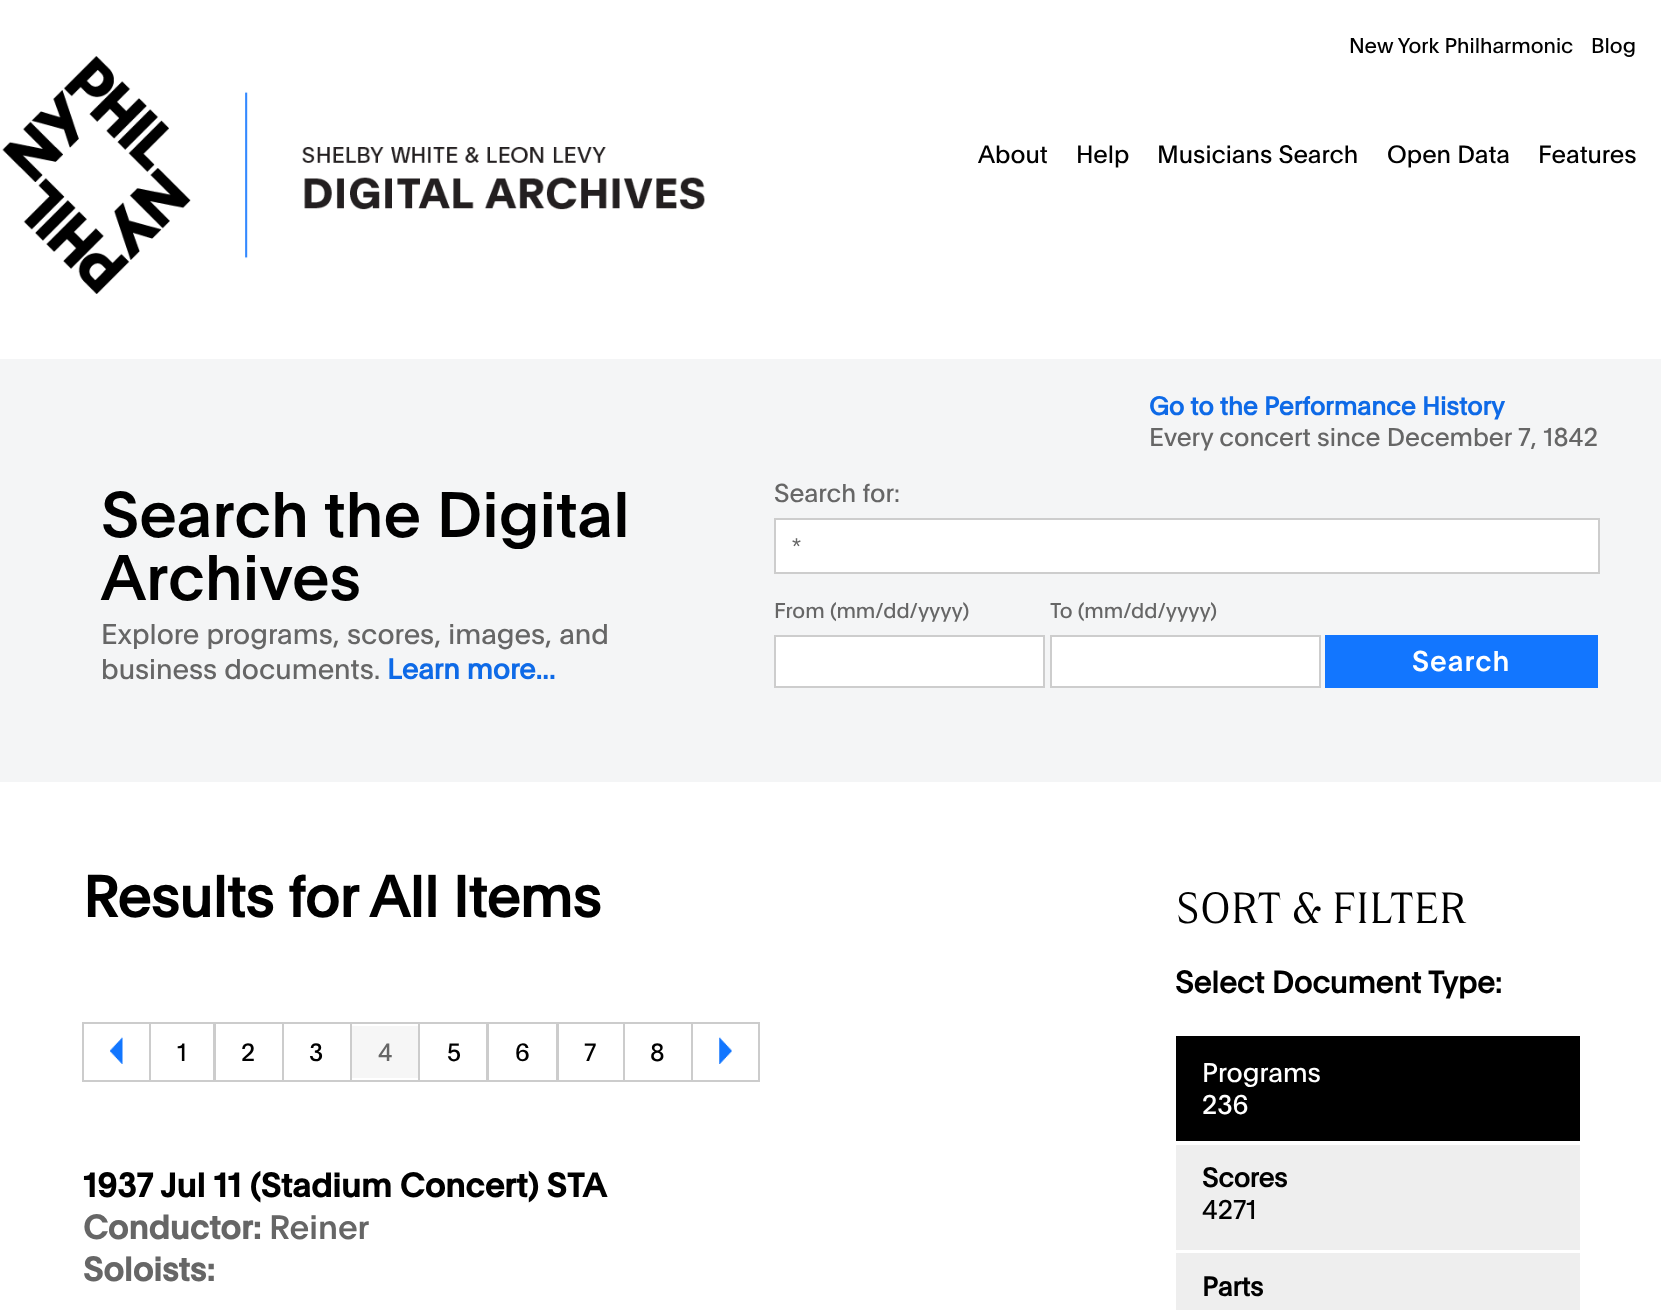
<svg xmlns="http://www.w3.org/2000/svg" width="1661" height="1310">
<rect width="100%" height="100%" fill="#fff"/>
<text x="1349" y="53" style="font-family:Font;font-size:21px;fill:#000">New York Philharmonic</text>
<text x="1591" y="53" style="font-family:Font;font-size:21px;fill:#000">Blog</text>
<image x="2" y="56" width="703" height="238" href="media/1.png"/>
<text x="978" y="163" style="font-family:Font;font-size:24.5px;fill:#000">About</text>
<text x="1076" y="163" style="font-family:Font;font-size:24.5px;fill:#000">Help</text>
<text x="1157" y="163" style="font-family:Font;font-size:24.5px;fill:#000">Musicians Search</text>
<text x="1387" y="163" style="font-family:Font;font-size:24.5px;fill:#000">Open Data</text>
<text x="1538" y="163" style="font-family:Font;font-size:24.5px;fill:#000">Features</text>
<rect y="359" width="1661" height="423" fill="#f4f5f6"/>
<text x="1149" y="415" style="font-family:Font;font-size:25.25px;font-weight:bold;fill:#0e6ae7">Go to the Performance History</text>
<text x="1149" y="446" style="font-family:Font;font-size:25.25px;fill:#666">Every concert since December 7, 1842</text>
<text x="101" y="537" style="font-family:Font;font-size:63px;font-weight:500;fill:#000">Search the Digital</text>
<text x="101" y="600" style="font-family:Font;font-size:63px;font-weight:500;fill:#000">Archives</text>
<text x="101" y="644" style="font-family:Font;font-size:28px;fill:#666">Explore programs, scores, images, and</text>
<text x="101" y="679" style="font-family:Font;font-size:28px;fill:#666">business documents.</text>
<text x="387" y="679" style="font-family:Font;font-size:28px;font-weight:bold;fill:#0e6ae7">Learn more...</text>
<text x="774" y="502" style="font-family:Font;font-size:25.25px;fill:#666">Search for:</text>
<rect x="775" y="519" width="824" height="54" fill="#fff" stroke="#cdcdcd" stroke-width="2"/>
<text x="792" y="554" style="font-family:Liberation Sans;font-size:23px;fill:#666">*</text>
<text x="774" y="618" style="font-family:Font;font-size:21px;fill:#666">From (mm/dd/yyyy)</text>
<rect x="775" y="636" width="269" height="51" fill="#fff" stroke="#cdcdcd" stroke-width="2"/>
<text x="1050" y="618" style="font-family:Font;font-size:21px;fill:#666">To (mm/dd/yyyy)</text>
<rect x="1051" y="636" width="269" height="51" fill="#fff" stroke="#cdcdcd" stroke-width="2"/>
<rect x="1325" y="635" width="273" height="53" fill="#1276ff"/>
<text x="1412" y="671" style="font-family:Font;font-size:28px;font-weight:500;letter-spacing:1px;fill:#fff">Search</text>
<text x="83" y="917" style="font-family:Font;font-size:56.75px;font-weight:bold;fill:#000">Results for All Items</text>
<text x="1175" y="923" style="font-family:'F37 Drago';font-size:47.25px;font-weight:300;fill:#000">SORT &amp; FILTER</text>
<text x="1175" y="993" style="font-family:Font;font-size:30.25px;font-weight:bold;fill:#000">Select Document Type:</text>
<rect x="1176" y="1036" width="404" height="105" fill="#000"/>
<text x="1202" y="1082" style="font-family:Font;font-size:26.5px;fill:#fff">Programs</text>
<text x="1202" y="1114" style="font-family:Font;font-size:26.5px;fill:#fff">236</text>
<rect x="1176" y="1145" width="404" height="105" fill="#eee"/>
<text x="1202" y="1187" style="font-family:Font;font-size:26.5px;font-weight:bold;fill:#000">Scores</text>
<text x="1202" y="1219" style="font-family:Font;font-size:26.5px;fill:#000">4271</text>
<rect x="1176" y="1253" width="404" height="57" fill="#eee"/>
<text x="1202" y="1296" style="font-family:Font;font-size:26.5px;font-weight:bold;fill:#000">Parts</text>
<rect x="83" y="1023" width="67" height="58" fill="none" stroke="#ccc" stroke-width="2"/>
<image x="110" y="1037" width="13" height="27" href="media/2.png"/>
<rect x="150" y="1023" width="64" height="58" fill="none" stroke="#ccc" stroke-width="2"/>
<text x="177" y="1061" style="font-family:Font;font-size:24.5px;fill:#000">1</text>
<rect x="215" y="1023" width="68" height="58" fill="none" stroke="#ccc" stroke-width="2"/>
<text x="241" y="1061" style="font-family:Font;font-size:24.5px;fill:#000">2</text>
<rect x="283" y="1023" width="68" height="58" fill="none" stroke="#ccc" stroke-width="2"/>
<text x="309" y="1061" style="font-family:Font;font-size:24.5px;fill:#000">3</text>
<rect x="351" y="1023" width="68" height="58" fill="none" stroke="#ccc" stroke-width="2"/>
<rect x="352" y="1026" width="66" height="52" fill="#f6f6f6"/>
<text x="378" y="1061" style="font-family:Font;font-size:24.5px;fill:#666">4</text>
<rect x="419" y="1023" width="68" height="58" fill="none" stroke="#ccc" stroke-width="2"/>
<text x="447" y="1061" style="font-family:Font;font-size:24.5px;fill:#000">5</text>
<rect x="488" y="1023" width="69" height="58" fill="none" stroke="#ccc" stroke-width="2"/>
<text x="515" y="1061" style="font-family:Font;font-size:24.5px;fill:#000">6</text>
<rect x="558" y="1023" width="66" height="58" fill="none" stroke="#ccc" stroke-width="2"/>
<text x="584" y="1061" style="font-family:Font;font-size:24.5px;fill:#000">7</text>
<rect x="624" y="1023" width="68" height="58" fill="none" stroke="#ccc" stroke-width="2"/>
<text x="650" y="1061" style="font-family:Font;font-size:24.5px;fill:#000">8</text>
<rect x="692" y="1023" width="67" height="58" fill="none" stroke="#ccc" stroke-width="2"/>
<image x="719" y="1037" width="13" height="27" href="media/3.png"/>
<text x="83" y="1197" style="font-family:'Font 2';font-size:33.1px;font-weight:bold;fill:#000">1937 Jul 11 (Stadium Concert) STA</text>
<text x="83" y="1239" style="font-family:'Font 2';font-size:33.1px;font-weight:bold;fill:#666">Conductor:</text>
<text x="269" y="1239" style="font-family:Font;font-size:33.1px;font-weight:500;fill:#666">Reiner</text>
<text x="83" y="1281" style="font-family:'Font 2';font-size:33.1px;font-weight:bold;fill:#666">Soloists:</text>
</svg>
